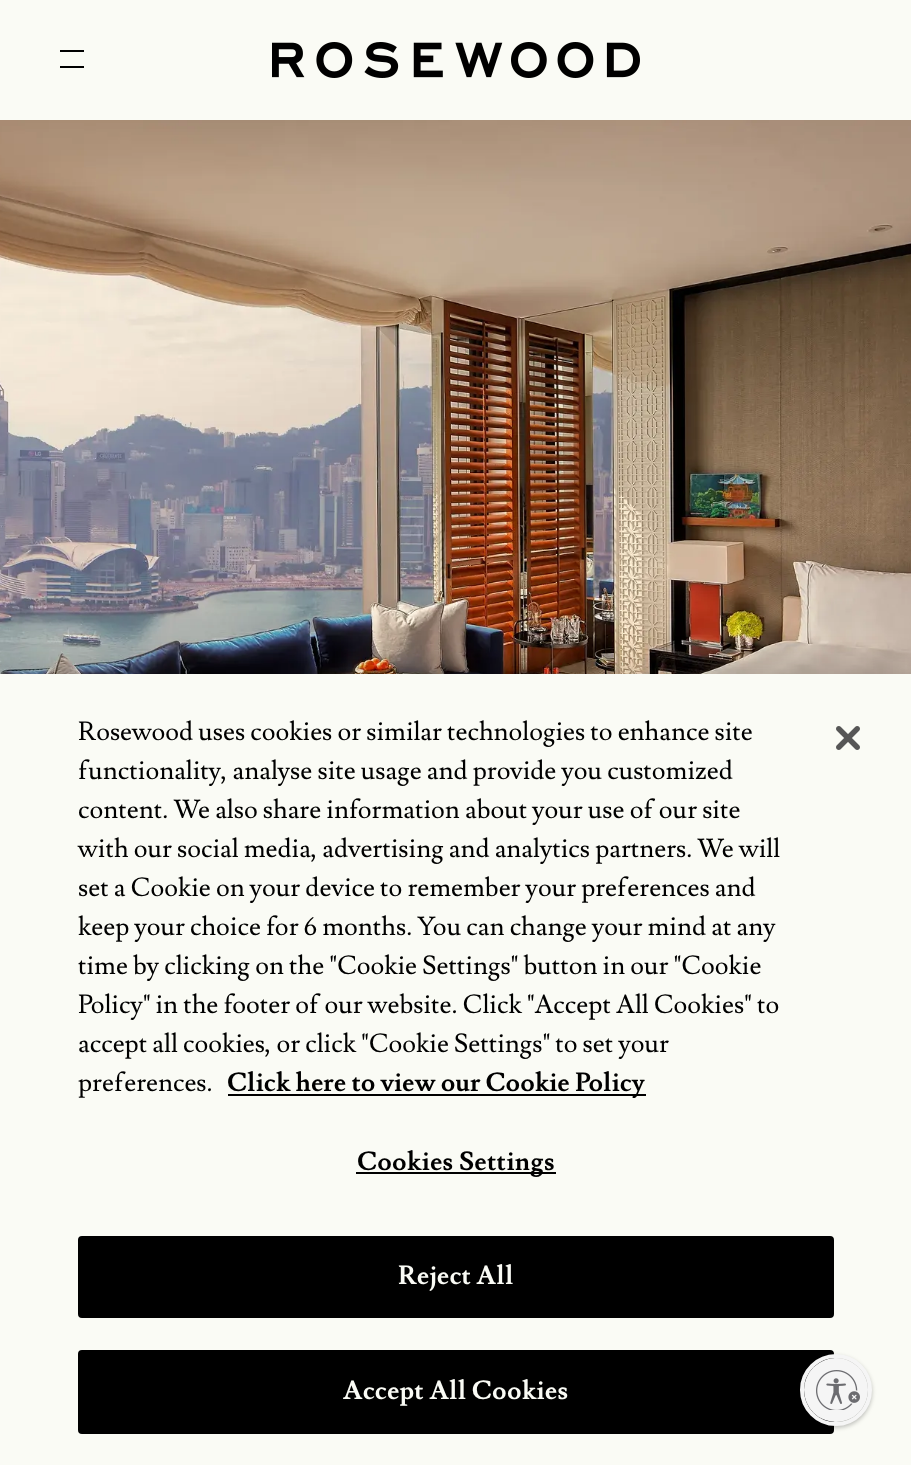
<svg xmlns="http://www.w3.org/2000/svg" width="911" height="1465">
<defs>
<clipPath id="clip1"><rect x="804" y="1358" width="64" height="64" rx="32"/></clipPath>
</defs>
<rect width="100%" height="100%" fill="#fafbf5"/>
<rect x="60" y="50" width="24" height="2" fill="#000"/>
<rect x="60" y="66" width="24" height="2" fill="#000"/>
<image x="272" y="42" width="368" height="36" href="media/1.png"/>
<image x="0" y="120" width="911" height="554" href="media/2.png"/>
<rect y="674" width="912" height="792" fill="#00000033" filter="blur(18px)"/>
<rect y="674" width="911" height="791" fill="#fafbf5"/>
<text x="78" y="740" style="font-family:Lusitana;font-size:26px;fill:#000">Rosewood uses cookies or similar technologies to enhance site</text>
<text x="78" y="779" style="font-family:Lusitana;font-size:26px;fill:#000">functionality, analyse site usage and provide you customized</text>
<text x="78" y="818" style="font-family:Lusitana;font-size:26px;fill:#000">content. We also share information about your use of our site</text>
<text x="78" y="857" style="font-family:Lusitana;font-size:26px;fill:#000">with our social media, advertising and analytics partners.</text>
<text x="697" y="857" style="font-family:Lusitana;font-size:26px;fill:#000">We will</text>
<text x="78" y="896" style="font-family:Lusitana;font-size:26px;fill:#000">set a Cookie on your device to remember your preferences and</text>
<text x="78" y="935" style="font-family:Lusitana;font-size:26px;fill:#000">keep your choice for 6 months. You can change your mind at any</text>
<text x="78" y="974" style="font-family:Lusitana;font-size:26px;fill:#000">time by clicking on the "Cookie Settings" button in our "Cookie</text>
<text x="78" y="1013" style="font-family:Lusitana;font-size:26px;fill:#000">Policy" in the footer of our website. Click "Accept All Cookies" to</text>
<text x="78" y="1052" style="font-family:Lusitana;font-size:26px;fill:#000">accept all cookies, or click "Cookie Settings" to set your</text>
<text x="78" y="1091" style="font-family:Lusitana;font-size:26px;fill:#000">preferences.</text>
<rect x="228" y="1094" width="418" height="2" fill="#000"/>
<text x="227" y="1091" style="font-family:Lusitana;font-size:26px;font-weight:bold;fill:#000">Click here to view our Cookie Policy</text>
<rect x="356" y="1172" width="200" height="2" fill="#000"/>
<text x="357" y="1170" style="font-family:Lusitana;font-size:26px;font-weight:bold;letter-spacing:0.25px;fill:#000">Cookies Settings</text>
<rect x="79" y="1237" width="754" height="80" rx="3" fill="#000" stroke="#000" stroke-width="2"/>
<text x="398" y="1284" style="font-family:Lusitana;font-size:26px;font-weight:bold;letter-spacing:0.25px;fill:#fafbf5">Reject All</text>
<rect x="79" y="1351" width="754" height="82" rx="3" fill="#000" stroke="#000" stroke-width="2"/>
<text x="343" y="1399" style="font-family:Lusitana;font-size:26px;font-weight:bold;letter-spacing:0.25px;fill:#fafbf5">Accept All Cookies</text>
<image x="836" y="726" width="24" height="24" href="media/3.png"/>
<rect x="800" y="1356" width="72" height="72" rx="36" fill="#0000003d" filter="blur(2px)"/>
<circle cx="836" cy="1390" r="34" fill="none" stroke="#f5f5f5" stroke-width="4"/>
<g clip-path="url(#clip1)">
<rect x="804" y="1360" width="64" height="64" rx="32" fill="#0000003d" filter="blur(2px)"/>
</g>
<circle cx="836" cy="1390" r="32" fill="#f5f5f5"/>
<image x="816" y="1370" width="44" height="40" href="media/4.png"/>
</svg>
